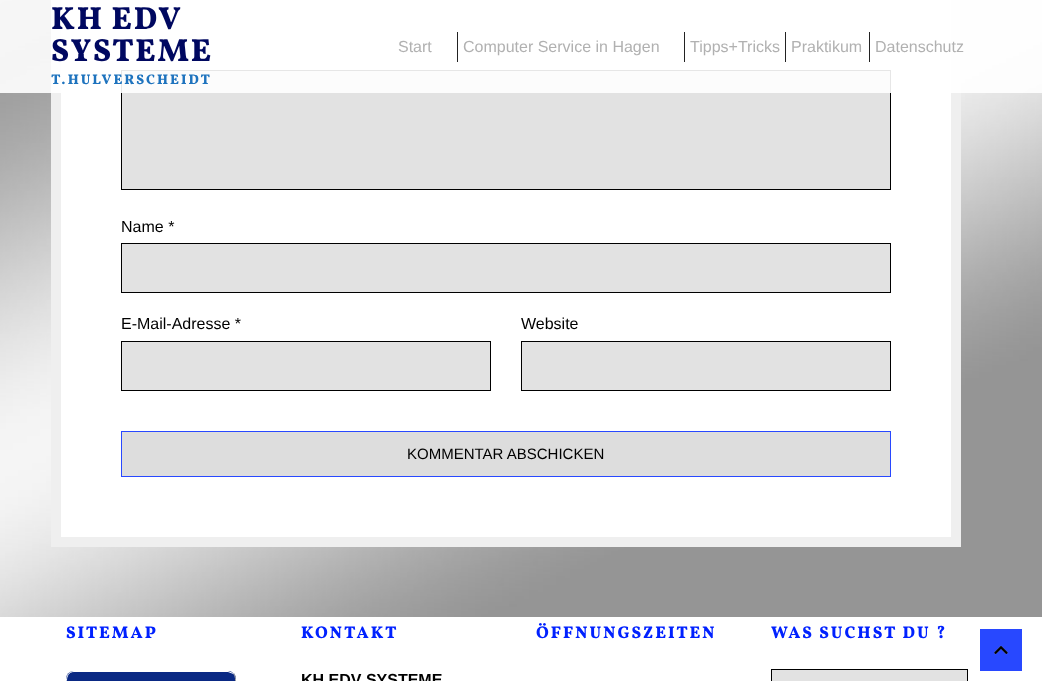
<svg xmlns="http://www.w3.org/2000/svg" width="1042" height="681">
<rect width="100%" height="100%" fill="#fff"/>
<image x="0" y="0" width="1042" height="617" href="media/1.png"/>
<rect x="51" width="910" height="547" fill="#efefef"/>
<rect x="61" width="890" height="537" fill="#fff"/>
<rect x="121.5" y="70.5" width="769" height="119" fill="#e2e2e2" stroke="#000"/>
<rect width="1042" height="93" fill="#ffffffe6"/>
<text x="51" y="29" word-spacing="-1" style="font-family:Vollkorn;font-size:32px;font-weight:800;letter-spacing:2px;fill:#000860">KH EDV</text>
<text x="51" y="61" style="font-family:Vollkorn;font-size:32px;font-weight:800;letter-spacing:2px;fill:#000860">SYSTEME</text>
<text x="51" y="84" style="font-family:Vollkorn;font-size:14px;font-weight:800;letter-spacing:2px;fill:#1e73be">T.HULVERSCHEIDT</text>
<text x="398" y="52" style="font-family:Liberation Sans;font-size:16px;fill:#b1b1b1">Start</text>
<rect x="457" y="32" width="1" height="30" fill="#222"/>
<text x="463" y="52" style="font-family:Liberation Sans;font-size:16px;fill:#b1b1b1">Computer Service in Hagen</text>
<rect x="684" y="32" width="1" height="30" fill="#222"/>
<text x="690" y="52" style="font-family:Liberation Sans;font-size:16px;fill:#b1b1b1">Tipps+Tricks</text>
<rect x="785" y="32" width="1" height="30" fill="#222"/>
<text x="791" y="52" style="font-family:Liberation Sans;font-size:16px;fill:#b1b1b1">Praktikum</text>
<rect x="869" y="32" width="1" height="30" fill="#222"/>
<text x="875" y="52" style="font-family:Liberation Sans;font-size:16px;fill:#b1b1b1">Datenschutz</text>
<text x="121" y="232" style="font-family:Liberation Sans;font-size:16px;fill:#000">Name *</text>
<rect x="121.5" y="243.5" width="769" height="49" fill="#e2e2e2" stroke="#000"/>
<text x="121" y="329" style="font-family:Liberation Sans;font-size:16px;fill:#000">E-Mail-Adresse *</text>
<rect x="121.5" y="341.5" width="369" height="49" fill="#e2e2e2" stroke="#000"/>
<text x="521" y="329" style="font-family:Liberation Sans;font-size:16px;fill:#000">Website</text>
<rect x="521.5" y="341.5" width="369" height="49" fill="#e2e2e2" stroke="#000"/>
<rect x="121.5" y="431.5" width="769" height="45" fill="#ddd" stroke="#2848ff"/>
<text x="407" y="459" style="font-family:Liberation Sans;font-size:15px;fill:#000">KOMMENTAR ABSCHICKEN</text>
<text x="66" y="638" style="font-family:Vollkorn;font-size:17px;font-weight:800;letter-spacing:2px;fill:#0021ff">SITEMAP</text>
<rect x="68" y="675" width="168" height="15" rx="7" fill="#606060" filter="blur(0.5px)"/>
<rect x="66" y="671" width="170" height="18" rx="8" fill="#0a2984"/>
<path d="M233.5 673.5c2.5 3 2 6.5 2 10c0 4.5-2.5 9-7.5 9h-154l-4-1.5l-1.5-.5" fill="none" stroke="#aaa"/>
<path d="M68.5 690.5c-2.5-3-2-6.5-2-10c0-4.5 2.5-9 7.5-9h154l4 1.5l1.5 .5" fill="none" stroke="#fff"/>
<text x="301" y="638" style="font-family:Vollkorn;font-size:17px;font-weight:800;letter-spacing:2px;fill:#0021ff">KONTAKT</text>
<text x="301" y="685" style="font-family:Liberation Sans;font-size:16px;font-weight:bold;fill:#000">KH EDV SYSTEME</text>
<text x="536" y="638" style="font-family:Vollkorn;font-size:17px;font-weight:800;letter-spacing:2px;fill:#0021ff">ÖFFNUNGSZEITEN</text>
<text x="771" y="638" style="font-family:Vollkorn;font-size:17px;font-weight:800;letter-spacing:2px;fill:#0021ff">WAS SUCHST DU ?</text>
<rect x="771.5" y="669.5" width="196" height="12" fill="#e2e2e2" stroke="#000"/>
<rect x="980" y="629" width="42" height="42" fill="#2848ff"/>
<image x="994" y="645" width="14" height="10" href="media/2.png"/>
</svg>
